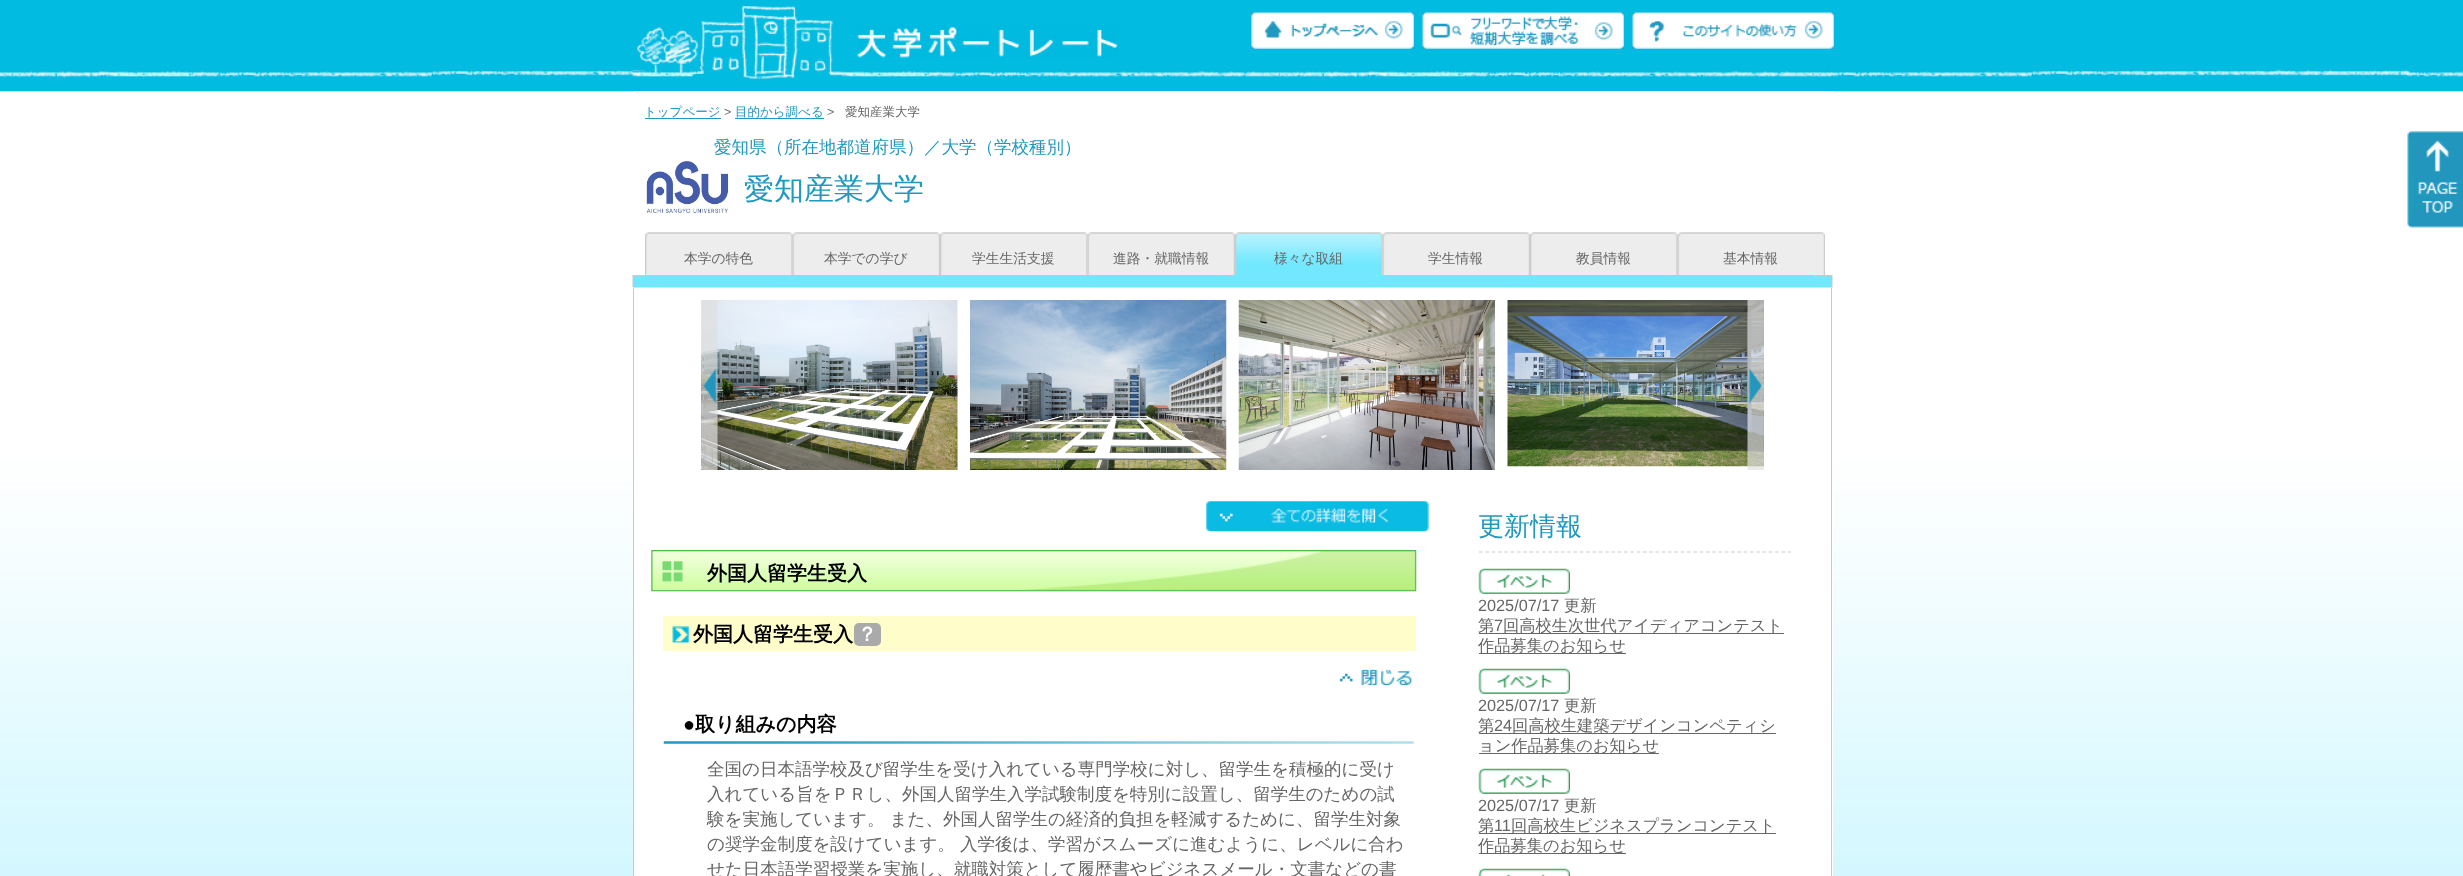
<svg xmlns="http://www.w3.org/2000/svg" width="2463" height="876">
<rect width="100%" height="100%" fill="#fff"/>
<image x="0" y="91" width="2463" height="785" href="media/1.png"/>
<image x="0" y="0" width="2463" height="92" href="media/2.png"/>
<image x="632" y="6" width="1201" height="86" href="media/3.png"/>
<image x="857" y="25" width="261" height="33" href="media/4.png"/>
<image x="1251" y="12" width="163" height="37" href="media/5.png"/>
<image x="1422" y="12" width="202" height="37" href="media/6.png"/>
<image x="1632" y="12" width="202" height="37" href="media/7.png"/>
<rect x="633" y="91" width="1200" height="785" fill="#fff"/>
<text x="644" y="116" style="font-family:WenQuanYi Zen Hei;font-size:12.5px;font-weight:500;fill:#2198bf">トップページ</text>
<rect x="645" y="118" width="76" height="1" fill="#2198bf"/>
<text x="724" y="116" style="font-family:Liberation Sans;font-size:12.5px;fill:#666">&gt;</text>
<text x="735" y="116" style="font-family:WenQuanYi Zen Hei;font-size:12.5px;font-weight:500;fill:#2198bf">目的から調べる</text>
<rect x="735" y="118" width="89" height="1" fill="#2198bf"/>
<text x="827" y="116" style="font-family:Liberation Sans;font-size:12.5px;fill:#666">&gt;</text>
<text x="845" y="116" style="font-family:WenQuanYi Zen Hei;font-size:12.5px;font-weight:500;fill:#666">愛知産業大学</text>
<text x="714" y="153" style="font-family:WenQuanYi Zen Hei;font-size:17.5px;font-weight:500;fill:#2198bf">愛知県（所在地都道府県）／大学（学校種別）</text>
<image x="646" y="160" width="83" height="54" href="media/8.png"/>
<text x="744" y="199" style="font-family:WenQuanYi Zen Hei;font-size:30px;font-weight:500;fill:#2198bf">愛知産業大学</text>
<image x="632" y="275" width="1201" height="13" href="media/9.png"/>
<image x="645" y="232" width="148" height="43" href="media/10.png"/>
<image x="647" y="232" width="146" height="43" href="media/11.png"/>
<text x="684" y="263" style="font-family:WenQuanYi Zen Hei;font-size:13.75px;font-weight:500;fill:#666">本学の特色</text>
<image x="792" y="232" width="148" height="43" href="media/12.png"/>
<image x="794" y="232" width="145" height="1" href="media/13.png"/>
<text x="824" y="263" style="font-family:WenQuanYi Zen Hei;font-size:13.75px;font-weight:500;fill:#666">本学での学び</text>
<image x="940" y="232" width="148" height="43" href="media/14.png"/>
<image x="942" y="232" width="146" height="43" href="media/15.png"/>
<text x="972" y="263" style="font-family:WenQuanYi Zen Hei;font-size:13.75px;font-weight:500;fill:#666">学生生活支援</text>
<image x="1087" y="232" width="148" height="43" href="media/12.png"/>
<image x="1089" y="232" width="145" height="1" href="media/13.png"/>
<text x="1113" y="263" style="font-family:WenQuanYi Zen Hei;font-size:13.75px;font-weight:500;fill:#666">進路・就職情報</text>
<image x="1235" y="232" width="148" height="43" href="media/16.png"/>
<image x="1236" y="232" width="147" height="43" href="media/17.png"/>
<text x="1274" y="263" style="font-family:WenQuanYi Zen Hei;font-size:13.75px;font-weight:500;fill:#666">様々な取組</text>
<image x="1382" y="232" width="148" height="43" href="media/18.png"/>
<image x="1384" y="232" width="145" height="1" href="media/13.png"/>
<text x="1428" y="263" style="font-family:WenQuanYi Zen Hei;font-size:13.75px;font-weight:500;fill:#666">学生情報</text>
<image x="1530" y="232" width="148" height="43" href="media/10.png"/>
<image x="1532" y="232" width="146" height="43" href="media/11.png"/>
<text x="1576" y="263" style="font-family:WenQuanYi Zen Hei;font-size:13.75px;font-weight:500;fill:#666">教員情報</text>
<image x="1677" y="232" width="148" height="43" href="media/12.png"/>
<image x="1679" y="232" width="145" height="1" href="media/13.png"/>
<text x="1723" y="263" style="font-family:WenQuanYi Zen Hei;font-size:13.75px;font-weight:500;fill:#666">基本情報</text>
<rect x="1831" y="288" width="1" height="588" fill="#c8c8c8"/>
<rect x="633" y="288" width="1" height="588" fill="#c8c8c8"/>
<image x="701" y="300" width="257" height="170" href="media/19.png"/>
<image x="970" y="300" width="257" height="170" href="media/20.png"/>
<image x="1238" y="300" width="257" height="170" href="media/21.png"/>
<image x="1507" y="300" width="257" height="167" href="media/22.png"/>
<image x="701" y="300" width="17" height="170" href="media/23.png"/>
<image x="1747" y="300" width="17" height="170" href="media/24.png"/>
<image x="1206" y="501" width="223" height="31" href="media/25.png"/>
<image x="651" y="550" width="766" height="42" href="media/26.png"/>
<text x="707" y="580" style="font-family:WenQuanYi Zen Hei;font-size:20px;font-weight:bold;fill:#000">外国人留学生受入</text>
<rect x="663" y="616" width="753" height="35" fill="#fffdca"/>
<image x="672" y="626" width="17" height="17" href="media/27.png"/>
<text x="693" y="641" style="font-family:WenQuanYi Zen Hei;font-size:20px;font-weight:bold;fill:#000">外国人留学生受入</text>
<rect x="854" y="623" width="27" height="23" rx="5" fill="#aaa"/>
<text x="857" y="641" style="font-family:WenQuanYi Zen Hei;font-size:20px;font-weight:bold;fill:#fff">？</text>
<image x="1339" y="669" width="74" height="18" href="media/28.png"/>
<image x="663" y="741" width="751" height="3" href="media/29.png"/>
<text x="683" y="731" style="font-family:Liberation Sans;font-size:20px;font-weight:bold;fill:#000">●</text>
<text x="695" y="731" style="font-family:WenQuanYi Zen Hei;font-size:20px;font-weight:bold;fill:#000">取り組みの内容</text>
<text x="707" y="775" style="font-family:WenQuanYi Zen Hei;font-size:17.5px;font-weight:500;fill:#666">全国の日本語学校及び留学生を受け入れている専門学校に対し、留学生を積極的に受け</text>
<text x="707" y="800" style="font-family:WenQuanYi Zen Hei;font-size:17.5px;font-weight:500;fill:#666">入れている旨をＰＲし、外国人留学生入学試験制度を特別に設置し、留学生のための試</text>
<text x="707" y="825" style="font-family:WenQuanYi Zen Hei;font-size:17.5px;font-weight:500;fill:#666">験を実施しています。 また、外国人留学生の経済的負担を軽減するために、留学生対象</text>
<text x="707" y="850" style="font-family:WenQuanYi Zen Hei;font-size:17.5px;font-weight:500;fill:#666">の奨学金制度を設けています。 入学後は、学習がスムーズに進むように、レベルに合わ</text>
<text x="707" y="875" style="font-family:WenQuanYi Zen Hei;font-size:17.5px;font-weight:500;fill:#666">せた日本語学習授業を実施し、就職対策として履歴書やビジネスメール・文書などの書</text>
<path d="M1479 552h312" fill="none" stroke="#ccc" stroke-width="1.2" stroke-dasharray="3.75 2.55"/>
<text x="1478" y="535" style="font-family:WenQuanYi Zen Hei;font-size:26px;font-weight:500;fill:#2198bf">更新情報</text>
<image x="1478" y="568" width="92" height="26" href="media/30.png"/>
<text x="1478" y="611" style="font-family:Liberation Sans;font-size:16.25px;fill:#666">2025/07/17</text>
<text x="1564" y="611" style="font-family:WenQuanYi Zen Hei;font-size:16.25px;font-weight:500;fill:#666">更新</text>
<rect x="1479" y="633" width="305" height="1" fill="#666"/>
<text x="1478" y="631" style="font-family:WenQuanYi Zen Hei;font-size:16.25px;font-weight:500;fill:#666">第</text>
<text x="1494" y="631" style="font-family:Liberation Sans;font-size:16.25px;fill:#666">7</text>
<text x="1503" y="631" style="font-family:WenQuanYi Zen Hei;font-size:16.25px;font-weight:500;fill:#666">回高校生次世代アイディアコンテスト</text>
<rect x="1479" y="653" width="147" height="1" fill="#666"/>
<text x="1478" y="651" style="font-family:WenQuanYi Zen Hei;font-size:16.25px;font-weight:500;fill:#666">作品募集のお知らせ</text>
<image x="1478" y="668" width="92" height="26" href="media/31.png"/>
<text x="1478" y="711" style="font-family:Liberation Sans;font-size:16.25px;fill:#666">2025/07/17</text>
<text x="1564" y="711" style="font-family:WenQuanYi Zen Hei;font-size:16.25px;font-weight:500;fill:#666">更新</text>
<rect x="1479" y="733" width="297" height="1" fill="#666"/>
<text x="1478" y="731" style="font-family:WenQuanYi Zen Hei;font-size:16.25px;font-weight:500;fill:#666">第</text>
<text x="1494" y="731" style="font-family:Liberation Sans;font-size:16.25px;fill:#666">24</text>
<text x="1512" y="731" style="font-family:WenQuanYi Zen Hei;font-size:16.25px;font-weight:500;fill:#666">回高校生建築デザインコンペティシ</text>
<rect x="1479" y="753" width="180" height="1" fill="#666"/>
<text x="1478" y="751" style="font-family:WenQuanYi Zen Hei;font-size:16.25px;font-weight:500;fill:#666">ョン作品募集のお知らせ</text>
<image x="1478" y="768" width="92" height="26" href="media/31.png"/>
<text x="1478" y="811" style="font-family:Liberation Sans;font-size:16.25px;fill:#666">2025/07/17</text>
<text x="1564" y="811" style="font-family:WenQuanYi Zen Hei;font-size:16.25px;font-weight:500;fill:#666">更新</text>
<rect x="1479" y="833" width="297" height="1" fill="#666"/>
<text x="1478" y="831" style="font-family:WenQuanYi Zen Hei;font-size:16.25px;font-weight:500;fill:#666">第</text>
<text x="1494" y="831" style="font-family:Liberation Sans;font-size:16.25px;fill:#666">11</text>
<text x="1511" y="831" style="font-family:WenQuanYi Zen Hei;font-size:16.25px;font-weight:500;fill:#666">回高校生ビジネスプランコンテスト</text>
<rect x="1479" y="853" width="147" height="1" fill="#666"/>
<text x="1478" y="851" style="font-family:WenQuanYi Zen Hei;font-size:16.25px;font-weight:500;fill:#666">作品募集のお知らせ</text>
<image x="1478" y="868" width="92" height="8" href="media/32.png"/>
<image x="2407" y="131" width="56" height="97" href="media/33.png"/>
</svg>
